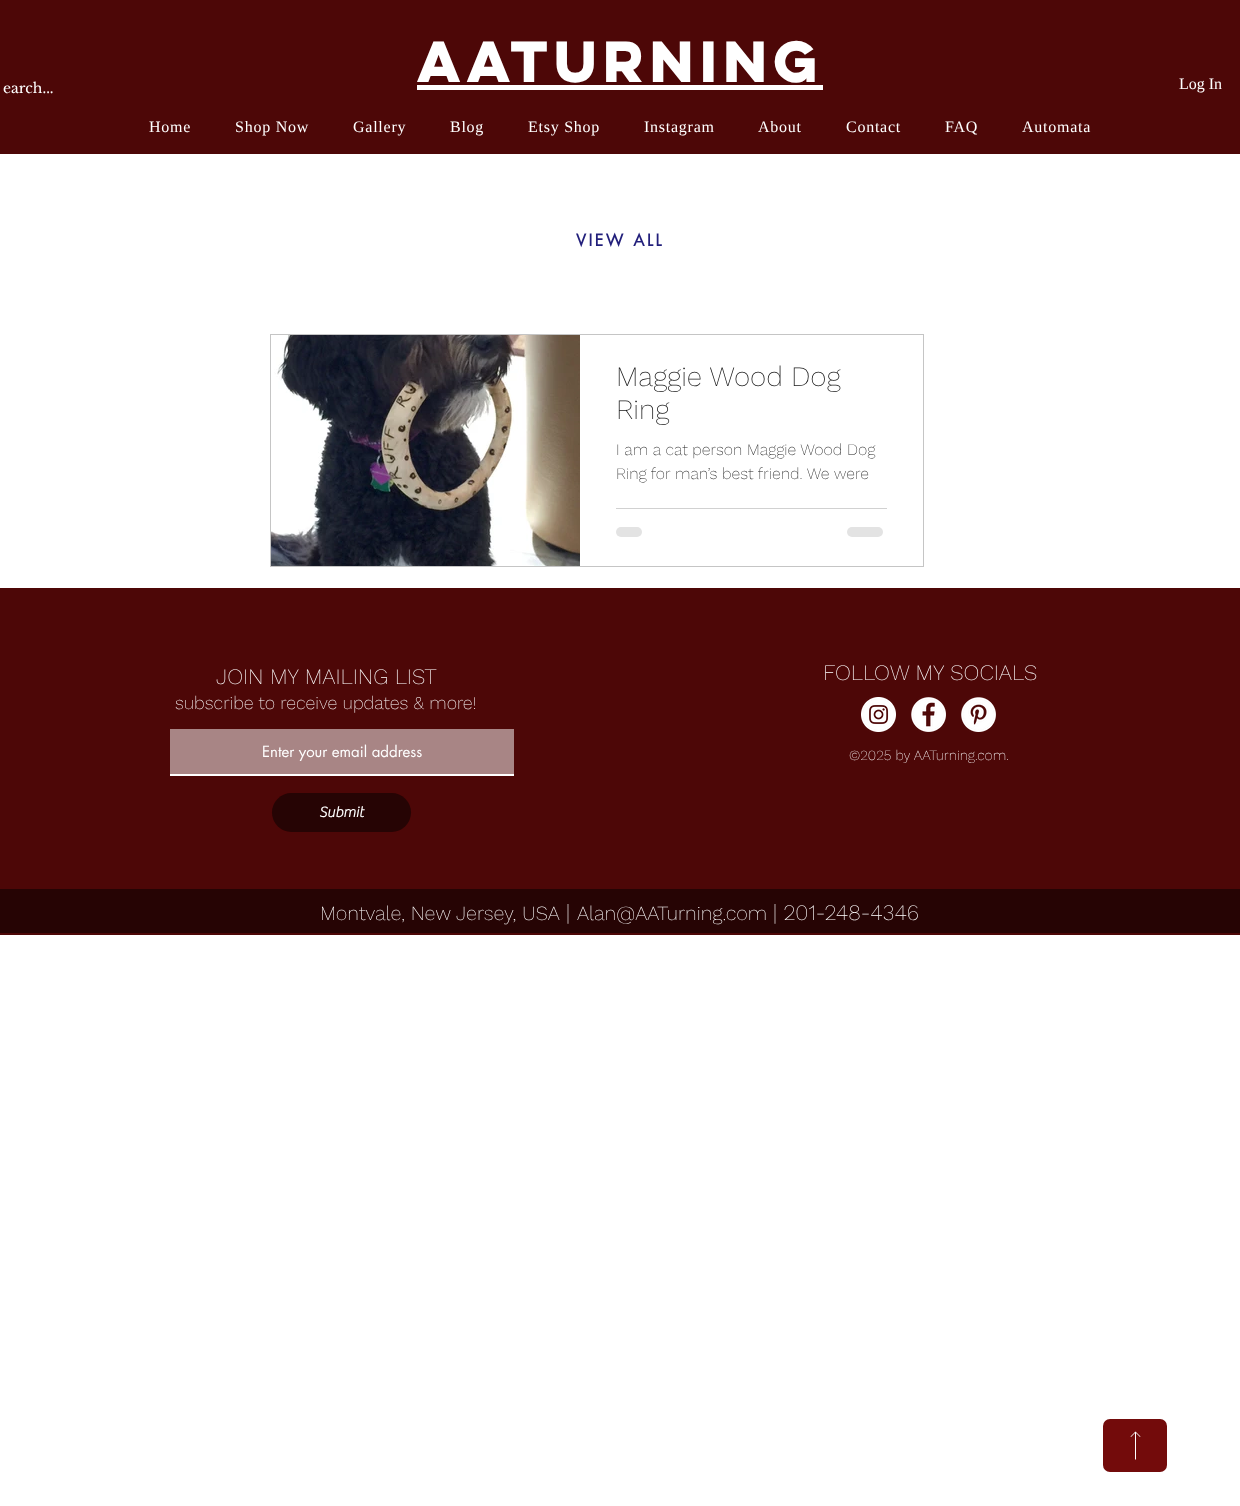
<svg xmlns="http://www.w3.org/2000/svg" width="1240" height="1506">
<rect width="100%" height="100%" fill="#fff"/>
<rect width="1240" height="154" fill="#4d0707"/>
<text x="417" y="82" style="font-family:'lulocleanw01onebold';font-size:52px;font-weight:bold;letter-spacing:-5.25px;fill:#fff">AATURNING</text>
<rect x="417" y="85" width="406" height="5" fill="#fff"/>
<text x="3" y="93" style="font-family:Libre Baskerville;font-size:14px;fill:#fff">earch...</text>
<text x="1179" y="89" style="font-family:Liberation Serif;font-size:16px;fill:#fff">Log In</text>
<text x="149" y="132" style="font-family:Liberation Serif;font-size:16px;letter-spacing:0.75px;fill:#fff">Home</text>
<text x="235" y="132" style="font-family:Liberation Serif;font-size:16px;letter-spacing:0.75px;fill:#fff">Shop Now</text>
<text x="353" y="132" style="font-family:Liberation Serif;font-size:16px;letter-spacing:0.75px;fill:#fff">Gallery</text>
<text x="450" y="132" style="font-family:Liberation Serif;font-size:16px;letter-spacing:0.75px;fill:#fff">Blog</text>
<text x="528" y="132" style="font-family:Liberation Serif;font-size:16px;letter-spacing:0.75px;fill:#fff">Etsy Shop</text>
<text x="644" y="132" style="font-family:Liberation Serif;font-size:16px;letter-spacing:0.75px;fill:#fff">Instagram</text>
<text x="758" y="132" style="font-family:Liberation Serif;font-size:16px;letter-spacing:0.75px;fill:#fff">About</text>
<text x="846" y="132" style="font-family:Liberation Serif;font-size:16px;letter-spacing:0.75px;fill:#fff">Contact</text>
<text x="945" y="132" style="font-family:Liberation Serif;font-size:16px;letter-spacing:0.75px;fill:#fff">FAQ</text>
<text x="1022" y="132" style="font-family:Liberation Serif;font-size:16px;letter-spacing:0.75px;fill:#fff">Automata</text>
<text x="576" y="246" style="font-family:futura;font-size:16px;font-weight:bold;letter-spacing:2.5px;fill:#221f7b">VIEW ALL</text>
<rect x="270.5" y="334.5" width="653" height="232" fill="none" stroke="#c5c5c5"/>
<image x="271" y="335" width="309" height="231" href="media/1.png"/>
<text x="616" y="386" style="font-family:Work Sans;font-size:28px;font-weight:200;fill:#181818">Maggie Wood Dog</text>
<text x="616" y="419" style="font-family:Work Sans;font-size:28px;font-weight:200;fill:#181818">Ring</text>
<text x="616" y="455" style="font-family:Work Sans;font-size:16px;font-weight:200;fill:#181818">I am a cat person Maggie Wood Dog</text>
<text x="616" y="479" style="font-family:Work Sans;font-size:16px;font-weight:200;fill:#181818">Ring for man’s best friend. We were</text>
<rect x="616" y="508" width="271" height="1" fill="#d1d1d1"/>
<rect x="616" y="527" width="26" height="10" rx="5" fill="#e3e3e3"/>
<rect x="847" y="527" width="36" height="10" rx="5" fill="#e3e3e3"/>
<rect y="588" width="1240" height="347" fill="#4d0707"/>
<text x="216" y="684" style="font-family:Work Sans;font-size:22px;font-weight:200;fill:#fff">JOIN MY MAILING LIST</text>
<text x="175" y="709" style="font-family:Work Sans;font-size:18px;font-weight:200;fill:#fff">subscribe to receive updates &amp; more!</text>
<rect x="170" y="729" width="344" height="45" fill="#a88585"/>
<rect x="170" y="774" width="344" height="2" fill="#fff"/>
<text x="262" y="757" style="font-family:futura;font-size:15px;fill:#fff">Enter your email address</text>
<rect x="272" y="793" width="139" height="39" rx="19.5" fill="#260404"/>
<text x="319" y="817" style="font-family:'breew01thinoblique';font-size:15px;font-weight:bold;fill:#fff">Submit</text>
<text x="823" y="680" style="font-family:Work Sans;font-size:22px;font-weight:200;fill:#fff">FOLLOW MY SOCIALS</text>
<image x="861" y="697" width="35" height="35" href="media/2.png"/>
<image x="911" y="697" width="35" height="35" href="media/3.png"/>
<image x="961" y="697" width="35" height="35" href="media/4.png"/>
<text x="849" y="760" style="font-family:Work Sans;font-size:14px;font-weight:200;fill:#fff">©2025 by AATurning.com.</text>
<rect y="889" width="1240" height="44" fill="#260404"/>
<text x="320" y="920" style="font-family:Work Sans;font-size:20px;font-weight:200;fill:#fff">Montvale, New Jersey, USA</text>
<text x="566" y="920" style="font-family:Work Sans;font-size:22px;font-weight:200;fill:#fff">|</text>
<text x="577" y="920" style="font-family:Work Sans;font-size:20px;font-weight:200;fill:#fff">Alan@AATurning.com</text>
<text x="773" y="920" style="font-family:Work Sans;font-size:22px;font-weight:200;fill:#fff">| 201-248-4346</text>
<rect x="1103" y="1419" width="64" height="53" rx="7" fill="#730b0b"/>
<path d="M1140.5 1436.5l-5-5l-5 5l.5 .5l4-4v26.5h1v-26.5l4 4z" fill="#fff"/>
</svg>
